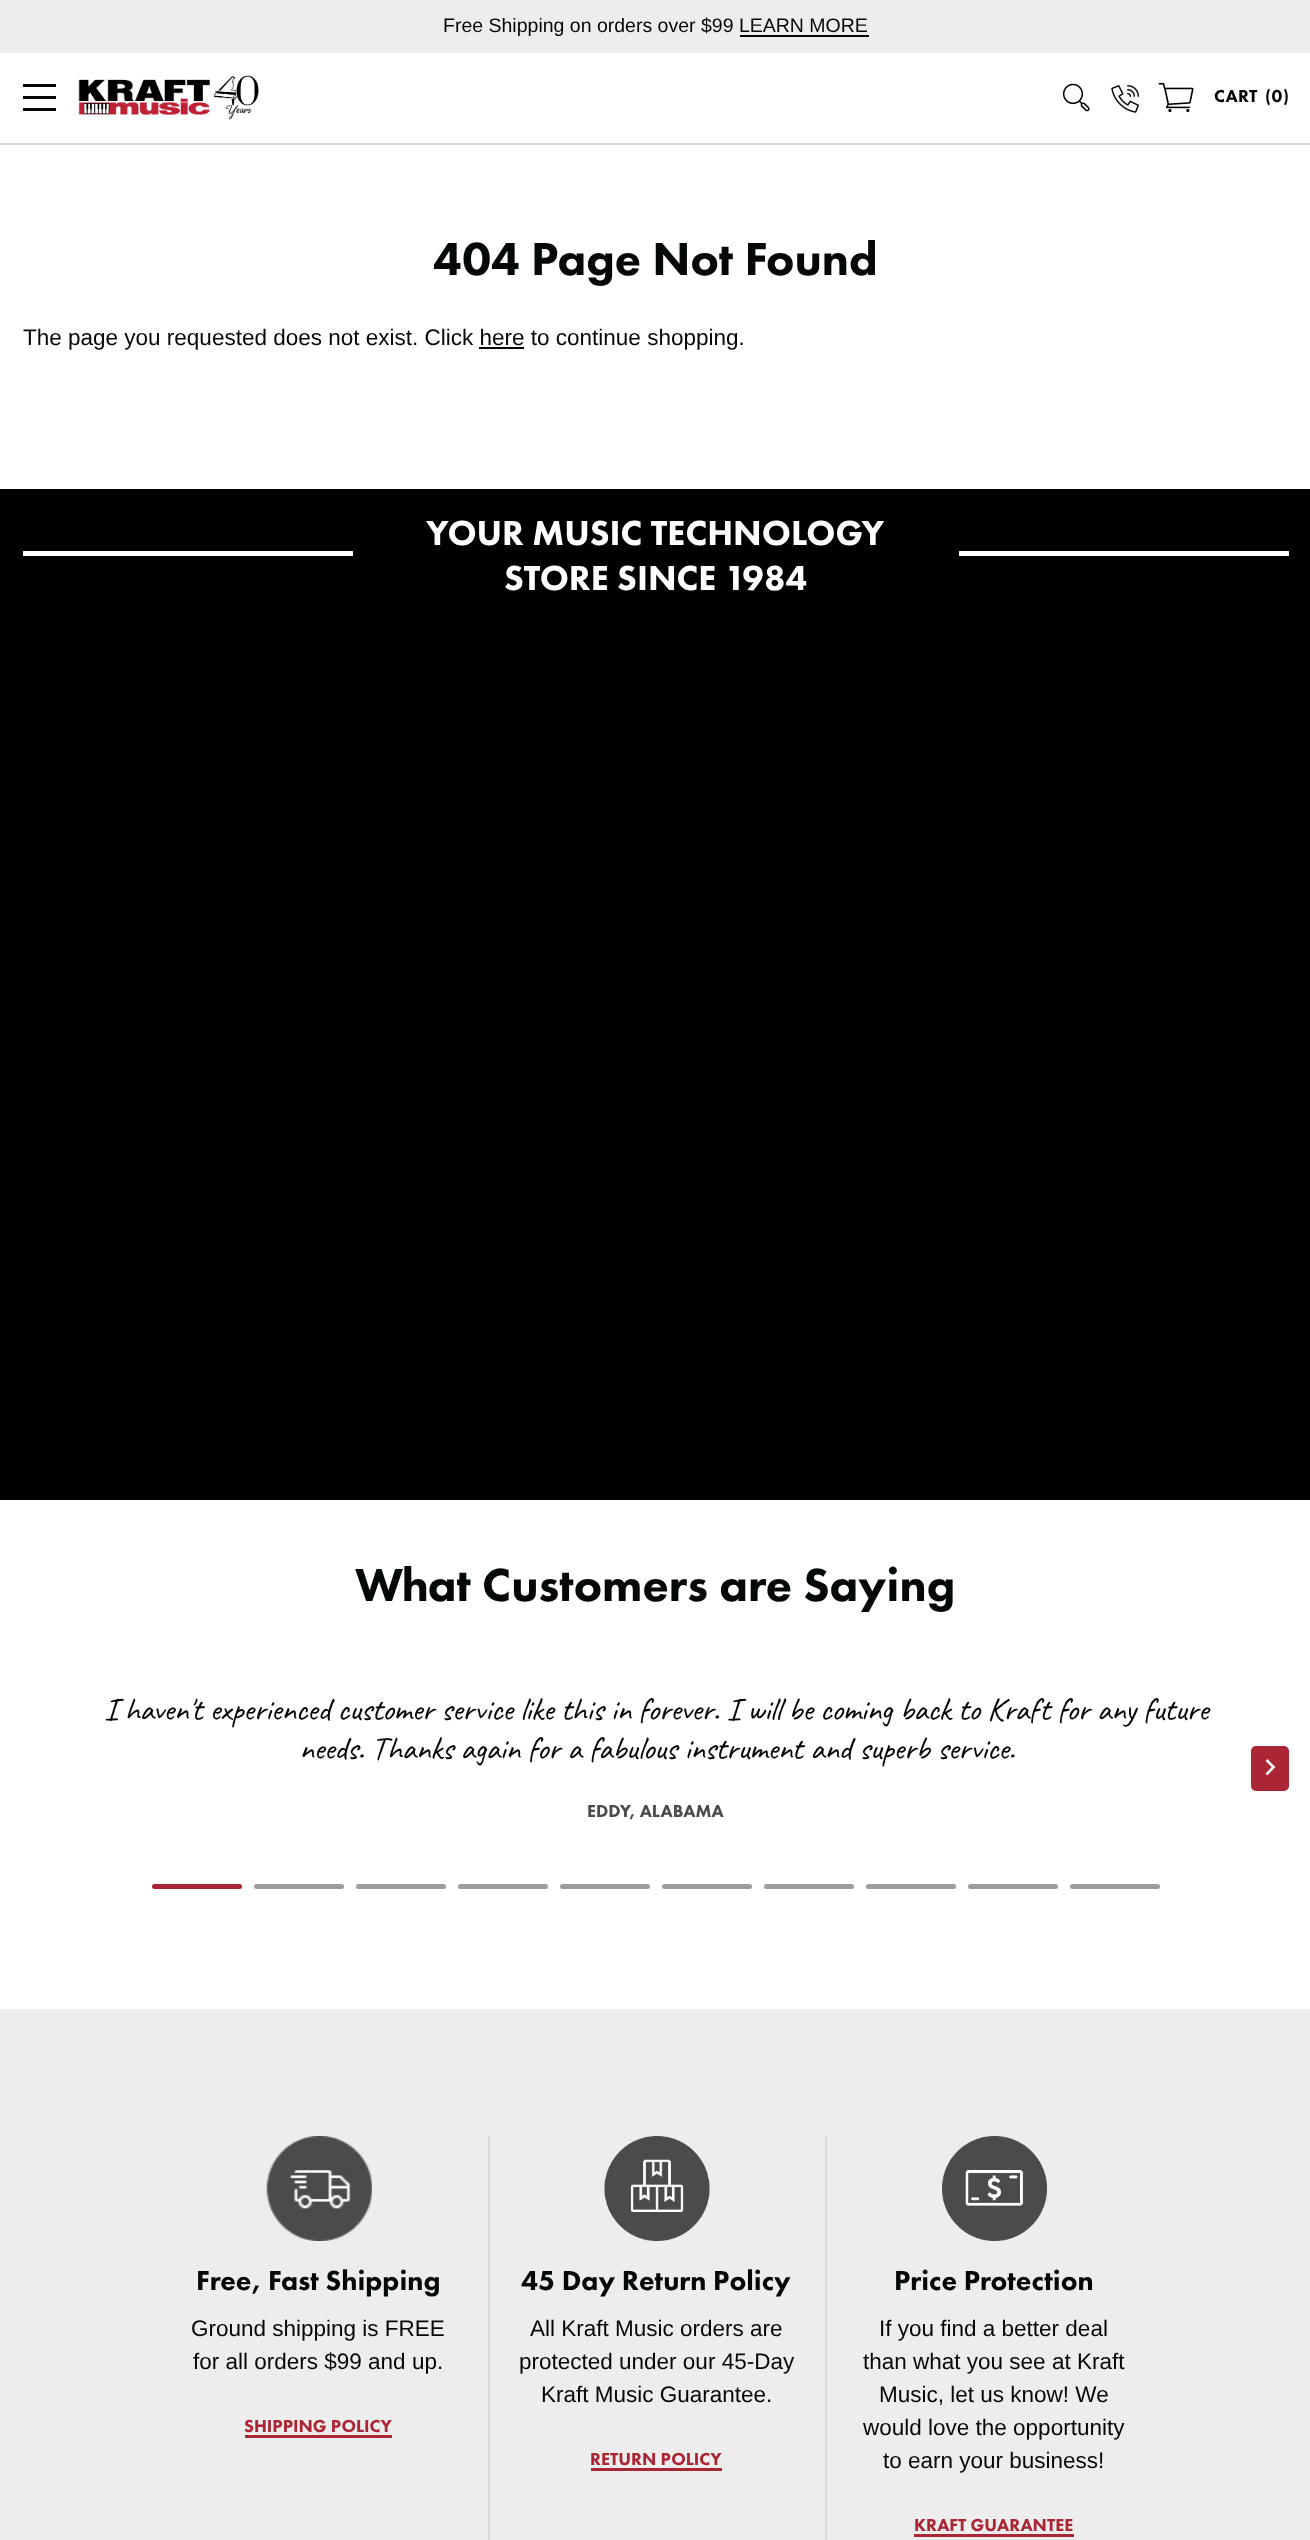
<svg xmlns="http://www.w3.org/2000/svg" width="1310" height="2540">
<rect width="100%" height="100%" fill="#fff"/>
<rect y="143" width="1310" height="2" fill="#d9d9d9"/>
<rect width="1310" height="53" fill="#ededed"/>
<text x="443" y="32" style="font-family:Arimo;font-size:19.5px;fill:#040807">Free Shipping on orders over $99 LEARN MORE</text>
<rect x="740" y="35" width="129" height="2" fill="#040807"/>
<rect x="23" y="96" width="33" height="3" fill="#040807"/>
<rect x="23" y="84" width="33" height="3" fill="#040807"/>
<rect x="23" y="108" width="33" height="3" fill="#040807"/>
<image x="78" y="75" width="181" height="45" href="media/1.png"/>
<image x="1062" y="83" width="28" height="29" href="media/2.png"/>
<image x="1111" y="85" width="28" height="28" href="media/3.png"/>
<image x="1158" y="82" width="36" height="31" href="media/4.png"/>
<text x="1214" y="102" style="font-family:Futura PT;font-size:18px;letter-spacing:0.5px;fill:#040807">CART</text>
<text x="1265" y="102" style="font-family:Futura PT;font-size:18px;letter-spacing:0.5px;fill:#040807">(0)</text>
<text x="433" y="275" style="font-family:Futura PT;font-size:48px;fill:#040807">404 Page Not Found</text>
<text x="23" y="345" style="font-family:Arimo;font-size:22.5px;fill:#040807">The page you requested does not exist. Click here to continue shopping.</text>
<rect x="479" y="347" width="45" height="2" fill="#040807"/>
<rect y="489" width="1310" height="1011" fill="#000"/>
<rect x="23" y="551" width="1266" height="5" fill="#fff"/>
<rect x="353" y="551" width="606" height="5" fill="#000"/>
<text x="426" y="545" style="font-family:Futura PT;font-size:36px;fill:#fff">YOUR MUSIC TECHNOLOGY</text>
<text x="504" y="590" style="font-family:Futura PT;font-size:36px;fill:#fff">STORE SINCE 1984</text>
<text x="355" y="1601" style="font-family:Futura PT;font-size:48px;fill:#040807">What Customers are Saying</text>
<text x="104" y="1720" word-spacing="0.1" style="font-family:Caveat;font-size:33px;letter-spacing:-0.42px;fill:#040807">I haven't experienced customer service like this in forever. I will be coming back to Kraft for any future</text>
<text x="299" y="1759" word-spacing="0.25" style="font-family:Caveat;font-size:33px;letter-spacing:-0.42px;fill:#040807">needs. Thanks again for a fabulous instrument and superb service.</text>
<text x="587" y="1817" style="font-family:Futura PT;font-size:18px;fill:#4a4a4a">EDDY, ALABAMA</text>
<rect x="1251" y="1746" width="38" height="45" rx="5" fill="#aa2634"/>
<path d="M1266.5 1774.5l7-7.5l-7-7" fill="none" stroke="#fff" stroke-width="2.6"/>
<rect x="152" y="1884" width="90" height="5" rx="2.5" fill="#aa2634"/>
<rect x="254" y="1884" width="90" height="5" rx="2.5" fill="#9d9d9d"/>
<rect x="356" y="1884" width="90" height="5" rx="2.5" fill="#9d9d9d"/>
<rect x="458" y="1884" width="90" height="5" rx="2.5" fill="#9d9d9d"/>
<rect x="560" y="1884" width="90" height="5" rx="2.5" fill="#9d9d9d"/>
<rect x="662" y="1884" width="90" height="5" rx="2.5" fill="#9d9d9d"/>
<rect x="764" y="1884" width="90" height="5" rx="2.5" fill="#9d9d9d"/>
<rect x="866" y="1884" width="90" height="5" rx="2.5" fill="#9d9d9d"/>
<rect x="968" y="1884" width="90" height="5" rx="2.5" fill="#9d9d9d"/>
<rect x="1070" y="1884" width="90" height="5" rx="2.5" fill="#9d9d9d"/>
<rect y="2009" width="1310" height="531" fill="#ededed"/>
<image x="266" y="2136" width="106" height="105" href="media/5.png"/>
<text x="196" y="2290" style="font-family:Futura PT;font-size:28.5px;fill:#040807">Free, Fast Shipping</text>
<text x="191" y="2336" style="font-family:Arimo;font-size:22.5px;fill:#040807">Ground shipping is FREE</text>
<text x="193" y="2369" style="font-family:Arimo;font-size:22.5px;fill:#040807">for all orders $99 and up.</text>
<text x="244" y="2432" style="font-family:Futura PT;font-size:18px;fill:#aa2634">SHIPPING POLICY</text>
<rect x="245" y="2435" width="147" height="3" fill="#aa2634"/>
<rect x="488" y="2136" width="2" height="404" fill="#d9d9d9"/>
<image x="604" y="2136" width="106" height="105" href="media/6.png"/>
<text x="521" y="2290" style="font-family:Futura PT;font-size:28.5px;fill:#040807">45 Day Return Policy</text>
<text x="530" y="2336" style="font-family:Arimo;font-size:22.5px;fill:#040807">All Kraft Music orders are</text>
<text x="519" y="2369" style="font-family:Arimo;font-size:22.5px;fill:#040807">protected under our 45-Day</text>
<text x="541" y="2402" style="font-family:Arimo;font-size:22.5px;fill:#040807">Kraft Music Guarantee.</text>
<text x="590" y="2465" style="font-family:Futura PT;font-size:18px;fill:#aa2634">RETURN POLICY</text>
<rect x="591" y="2468" width="131" height="3" fill="#aa2634"/>
<rect x="825" y="2136" width="2" height="404" fill="#d9d9d9"/>
<image x="942" y="2136" width="105" height="105" href="media/7.png"/>
<text x="894" y="2290" style="font-family:Futura PT;font-size:28.5px;fill:#040807">Price Protection</text>
<text x="879" y="2336" style="font-family:Arimo;font-size:22.5px;fill:#040807">If you find a better deal</text>
<text x="863" y="2369" style="font-family:Arimo;font-size:22.5px;fill:#040807">than what you see at Kraft</text>
<text x="879" y="2402" style="font-family:Arimo;font-size:22.5px;fill:#040807">Music, let us know! We</text>
<text x="863" y="2435" style="font-family:Arimo;font-size:22.5px;fill:#040807">would love the opportunity</text>
<text x="883" y="2468" style="font-family:Arimo;font-size:22.5px;fill:#040807">to earn your business!</text>
<text x="914" y="2531" style="font-family:Futura PT;font-size:18px;fill:#aa2634">KRAFT GUARANTEE</text>
<rect x="914" y="2534" width="160" height="3" fill="#aa2634"/>
</svg>
